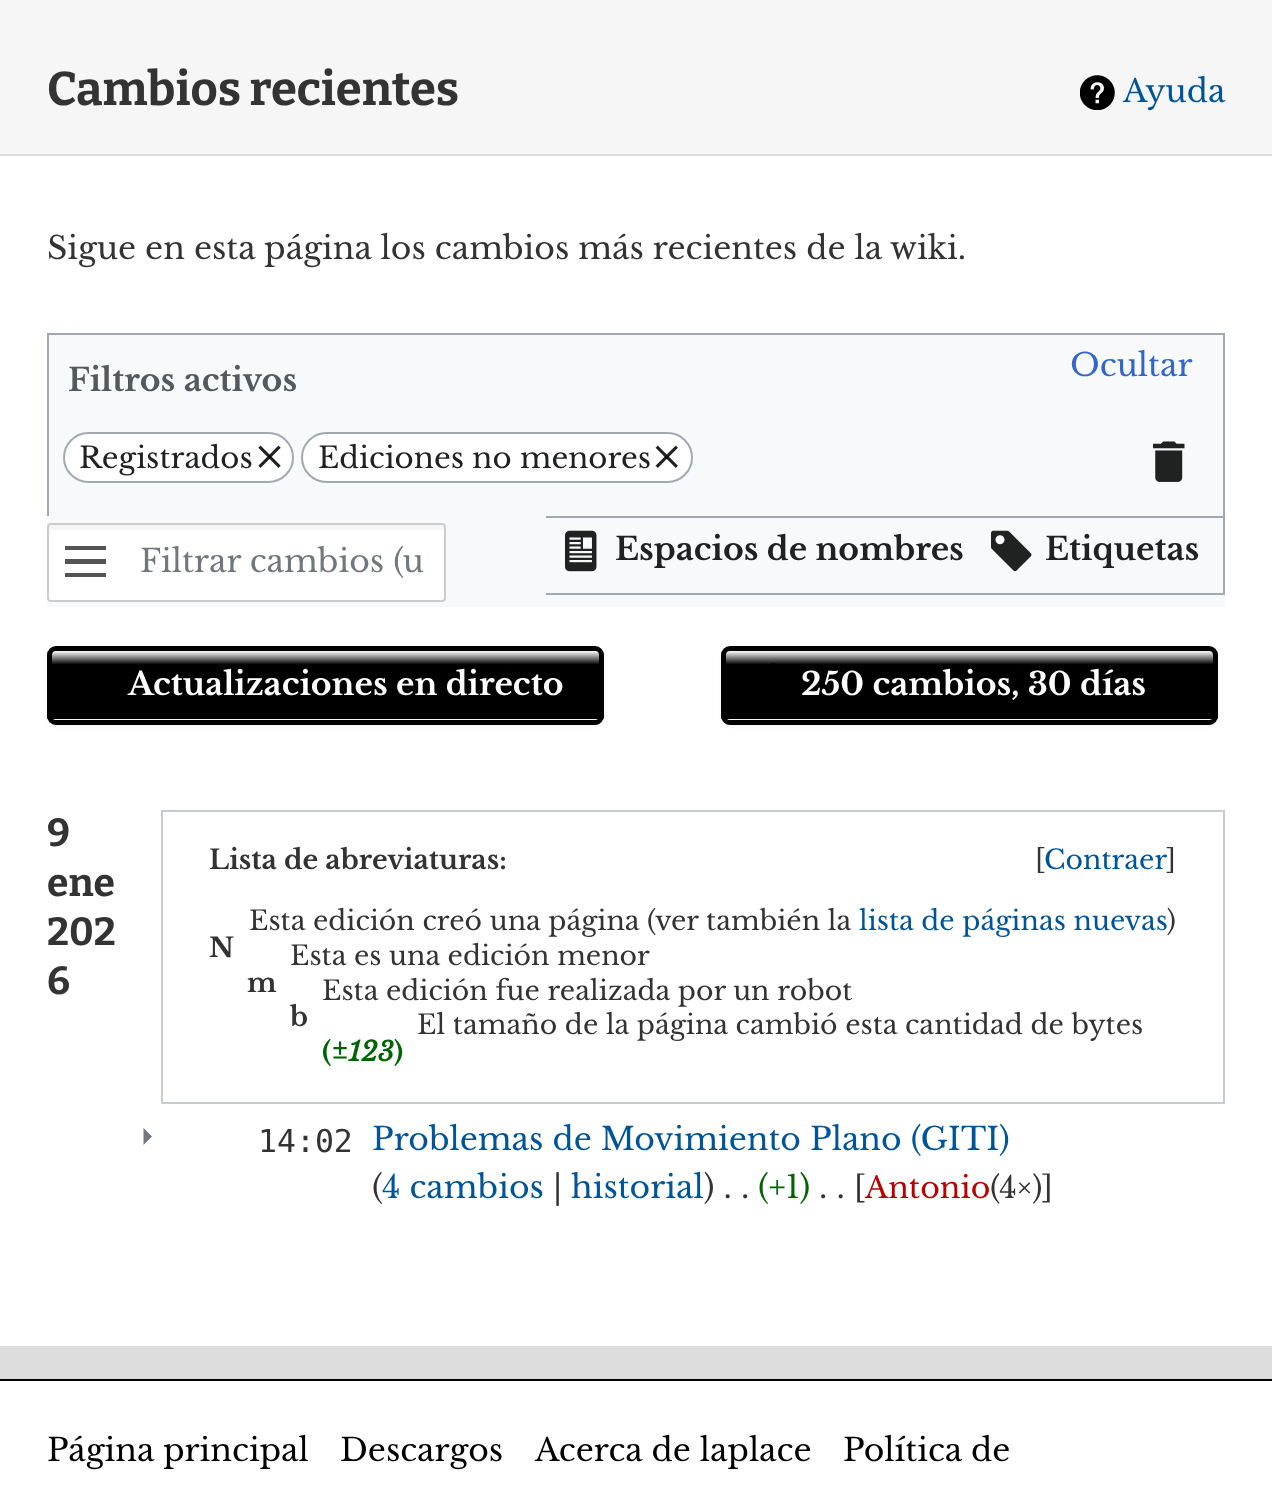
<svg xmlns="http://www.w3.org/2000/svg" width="1272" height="1501">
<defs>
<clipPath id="clip1"><rect x="47" y="646" width="557" height="79" rx="9"/></clipPath>
<linearGradient id="g1" gradientUnits="userSpaceOnUse" x1="326" y1="651" x2="326" y2="719"><stop offset="0" stop-color="#fff"/><stop offset="0.2" stop-color="#000"/></linearGradient>
<linearGradient id="g2" gradientUnits="userSpaceOnUse" x1="326" y1="719" x2="326" y2="788"><stop offset="0" stop-color="#fff"/><stop offset="0.2" stop-color="#000"/></linearGradient>
<clipPath id="clip2"><rect x="721" y="646" width="497" height="79" rx="9"/></clipPath>
<linearGradient id="g3" gradientUnits="userSpaceOnUse" x1="970" y1="651" x2="970" y2="719"><stop offset="0" stop-color="#fff"/><stop offset="0.2" stop-color="#000"/></linearGradient>
<linearGradient id="g4" gradientUnits="userSpaceOnUse" x1="970" y1="719" x2="970" y2="788"><stop offset="0" stop-color="#fff"/><stop offset="0.2" stop-color="#000"/></linearGradient>
</defs>
<rect width="100%" height="100%" fill="#ddd"/>
<rect width="1272" height="154" fill="#f6f6f6"/>
<text x="47" y="105" style="font-family:Bitter;font-size:47.25px;font-weight:bold;fill:#333">Cambios recientes</text>
<image x="1080" y="75" width="35" height="35" href="media/1.png"/>
<text x="1123" y="102" style="font-family:Libre Baskerville;font-size:31.5px;fill:#059">Ayuda</text>
<rect y="156" width="1272" height="1190" fill="#fff"/>
<text x="47" y="259" style="font-family:Libre Baskerville;font-size:31.5px;fill:#333">Sigue en esta página los cambios más recientes de la wiki.</text>
<rect x="47" y="335" width="1178" height="272" fill="#f8f9fa"/>
<rect x="47" y="333" width="1178" height="2" fill="#a2a9b1"/>
<rect x="1223" y="333" width="2" height="183" fill="#a2a9b1"/>
<rect x="47" y="333" width="2" height="183" fill="#a2a9b1"/>
<text x="68" y="391" style="font-family:Libre Baskerville;font-size:31.5px;font-weight:bold;fill:#54595d">Filtros activos</text>
<text x="1070" y="376" style="font-family:Libre Baskerville;font-size:31.5px;fill:#36c">Ocultar</text>
<rect x="64" y="433" width="229" height="49" rx="24.5" fill="#fff" stroke="#a2a9b1" stroke-width="2"/>
<text x="79" y="468" style="font-family:Libre Baskerville;font-size:29.25px;fill:#202122">Registrados</text>
<image x="258" y="445" width="23" height="23" href="media/2.png"/>
<rect x="302" y="433" width="390" height="49" rx="24.5" fill="#fff" stroke="#a2a9b1" stroke-width="2"/>
<text x="318" y="468" style="font-family:Libre Baskerville;font-size:29.25px;fill:#202122">Ediciones no menores</text>
<image x="655" y="445" width="23" height="23" href="media/3.png"/>
<image x="1153" y="441" width="32" height="41" href="media/4.png"/>
<rect x="47" y="523" width="399" height="79" rx="4" fill="#fff"/>
<path d="M51 530h392c1 0 1 1 1 2v68c1-1 1-1 1-2v-71c0-1-1-2-2-2h-392c-1 0-2 1-2 2v5c0-1 1-2 2-2z" fill="#f6f6f6"/>
<rect x="48" y="524" width="397" height="77" rx="3" fill="none" stroke="#ccc" stroke-width="2"/>
<path d="M65 546v4h41v-4zm0 18h41v-5h-41zm0 13h41v-4h-41z" fill="#545454"/>
<text x="140" y="572" style="font-family:Libre Baskerville;font-size:31.5px;fill:#72777d">Filtrar cambios (u</text>
<rect x="546" y="516" width="679" height="2" fill="#a2a9b1"/>
<rect x="1223" y="516" width="2" height="79" fill="#a2a9b1"/>
<rect x="546" y="593" width="679" height="2" fill="#a2a9b1"/>
<image x="565" y="530" width="32" height="42" href="media/5.png"/>
<text x="615" y="560" style="font-family:Libre Baskerville;font-size:31.5px;font-weight:bold;fill:#202122">Espacios de nombres</text>
<image x="991" y="530" width="41" height="42" href="media/6.png"/>
<text x="1045" y="560" style="font-family:Libre Baskerville;font-size:31.5px;font-weight:bold;fill:#202122">Etiquetas</text>
<rect x="47" y="648" width="557" height="78" rx="9" fill="#0000000d" filter="blur(2px)"/>
<g clip-path="url(#clip1)">
<rect x="47" y="651" width="557" height="68" fill="url(#g1)"/>
<rect x="47" y="719" width="557" height="6" fill="url(#g2)"/>
</g>
<rect x="49.5" y="648.5" width="552" height="74" rx="6.5" fill="none" stroke="#000" stroke-width="5"/>
<text x="128" y="695" style="font-family:Libre Baskerville;font-size:31.5px;font-weight:bold;fill:#fff">Actualizaciones en directo</text>
<rect x="721" y="648" width="497" height="78" rx="9" fill="#0000000d" filter="blur(2px)"/>
<g clip-path="url(#clip2)">
<rect x="721" y="651" width="497" height="68" fill="url(#g3)"/>
<rect x="721" y="719" width="497" height="6" fill="url(#g4)"/>
</g>
<rect x="723.5" y="648.5" width="492" height="74" rx="6.5" fill="none" stroke="#000" stroke-width="5"/>
<image x="770" y="663" width="7" height="1" href="media/7.png"/>
<text x="801" y="695" style="font-family:Libre Baskerville;font-size:31.5px;font-weight:bold;fill:#fff">250 cambios, 30 días</text>
<text x="47" y="846" style="font-family:Bitter;font-size:39px;font-weight:bold;fill:#333">9</text>
<text x="47" y="896" style="font-family:Bitter;font-size:39px;font-weight:bold;fill:#333">ene</text>
<text x="47" y="945" style="font-family:Bitter;font-size:39px;font-weight:bold;fill:#333">202</text>
<text x="47" y="994" style="font-family:Bitter;font-size:39px;font-weight:bold;fill:#333">6</text>
<rect x="162" y="811" width="1062" height="292" fill="none" stroke="#c8ccd1" stroke-width="2"/>
<text x="209" y="869" style="font-family:Libre Baskerville;font-size:26.75px;font-weight:bold;fill:#333">Lista de abreviaturas:</text>
<text x="1035" y="869" style="font-family:Libre Baskerville;font-size:26.75px;fill:#333">[</text>
<text x="1044" y="869" style="font-family:Libre Baskerville;font-size:26.75px;fill:#059">Contraer</text>
<text x="1166" y="869" style="font-family:Libre Baskerville;font-size:26.75px;fill:#333">]</text>
<text x="249" y="930" style="font-family:Libre Baskerville;font-size:26.75px;fill:#333">Esta edición creó una página (ver también la</text>
<text x="859" y="930" style="font-family:Libre Baskerville;font-size:26.75px;fill:#059">lista de páginas nuevas</text>
<text x="1167" y="930" style="font-family:Libre Baskerville;font-size:26.75px;fill:#333">)</text>
<text x="209" y="957" style="font-family:Libre Baskerville;font-size:26.75px;font-weight:bold;fill:#333">N</text>
<text x="290" y="965" style="font-family:Libre Baskerville;font-size:26.75px;fill:#333">Esta es una edición menor</text>
<text x="247" y="992" style="font-family:Libre Baskerville;font-size:26.75px;font-weight:bold;fill:#333">m</text>
<text x="322" y="1000" style="font-family:Libre Baskerville;font-size:26.75px;fill:#333">Esta edición fue realizada por un robot</text>
<text x="290" y="1026" style="font-family:Libre Baskerville;font-size:26.75px;font-weight:bold;fill:#333">b</text>
<text x="417" y="1034" style="font-family:Libre Baskerville;font-size:26.75px;fill:#333">El tamaño de la página cambió esta cantidad de bytes</text>
<text x="322" y="1061" style="font-family:Libre Baskerville;font-size:26.75px;font-weight:bold;fill:#006400">(</text>
<text x="331" y="1061" style="font-family:Libre Baskerville;font-size:26.75px;font-weight:bold;font-style:italic;fill:#006400">±123</text>
<text x="394" y="1061" style="font-family:Libre Baskerville;font-size:26.75px;font-weight:bold;fill:#006400">)</text>
<path d="M143.5 1128v17l8.5-8.5z" fill="#72777d"/>
<text x="258" y="1152" style="font-family:DejaVu Sans Mono;font-size:31.5px;fill:#333">14:02</text>
<text x="372" y="1150" style="font-family:Libre Baskerville;font-size:31.5px;fill:#059">Problemas de Movimiento Plano (GITI)</text>
<text x="372" y="1198" style="font-family:Libre Baskerville;font-size:31.5px;fill:#333">(</text>
<text x="382" y="1198" style="font-family:Libre Baskerville;font-size:31.5px;fill:#059">4 cambios</text>
<text x="553" y="1198" style="font-family:Libre Baskerville;font-size:31.5px;fill:#333">|</text>
<text x="571" y="1198" style="font-family:Libre Baskerville;font-size:31.5px;fill:#059">historial</text>
<text x="704" y="1198" style="font-family:Libre Baskerville;font-size:31.5px;fill:#333">) . .</text>
<text x="758" y="1198" style="font-family:Libre Baskerville;font-size:31.5px;fill:#006400">(+1)</text>
<text x="819" y="1198" style="font-family:Libre Baskerville;font-size:31.5px;fill:#333">. .</text>
<text x="854" y="1198" style="font-family:Libre Baskerville;font-size:30px;fill:#333">[</text>
<text x="865" y="1198" style="font-family:Libre Baskerville;font-size:30px;fill:#b00">Antonio</text>
<text x="990" y="1198" style="font-family:Libre Baskerville;font-size:30px;fill:#333"> (4×)]</text>
<rect y="1381" width="1272" height="120" fill="#fff"/>
<rect y="1379" width="1272" height="2" fill="#000"/>
<text x="47" y="1461" style="font-family:Libre Baskerville;font-size:31.5px;fill:#000">Página principal</text>
<text x="340" y="1461" style="font-family:Libre Baskerville;font-size:31.5px;fill:#000">Descargos</text>
<text x="535" y="1461" style="font-family:Libre Baskerville;font-size:31.5px;fill:#000">Acerca de laplace</text>
<text x="843" y="1461" style="font-family:Libre Baskerville;font-size:31.5px;fill:#000">Política de</text>
</svg>
